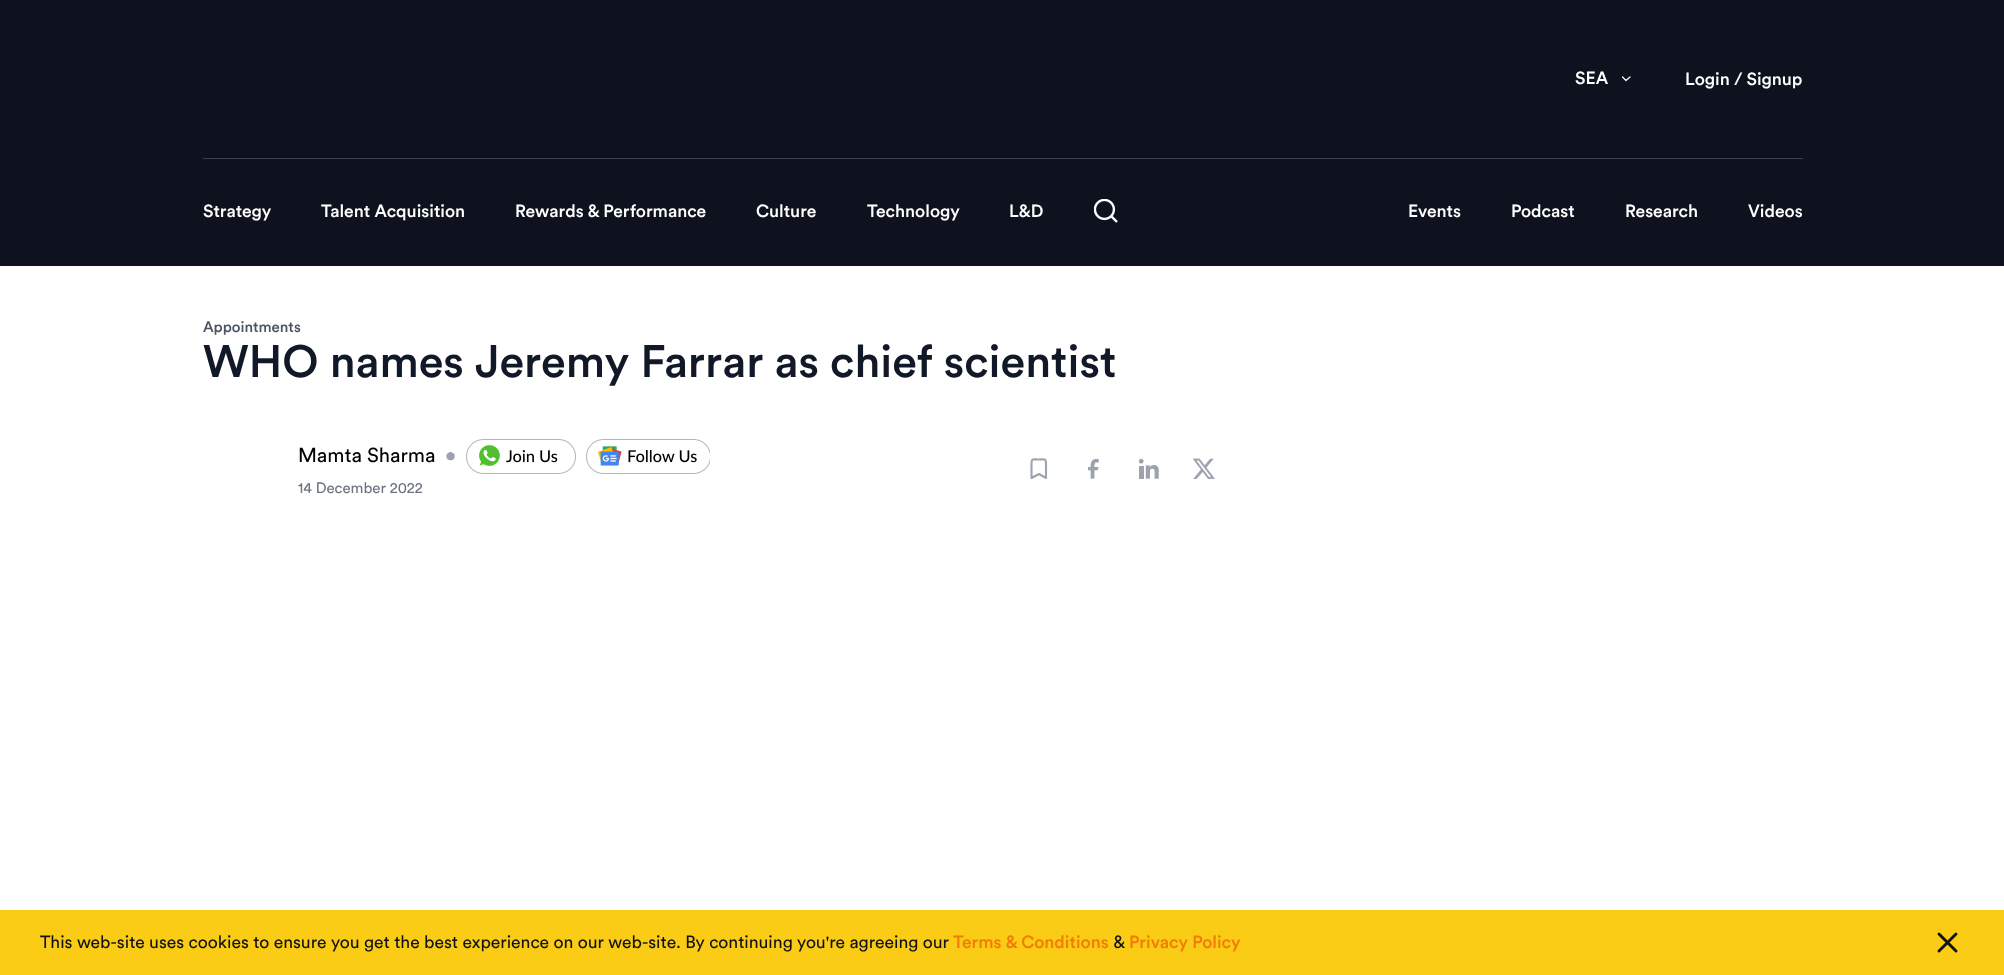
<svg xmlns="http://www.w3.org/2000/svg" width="2004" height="975">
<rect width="100%" height="100%" fill="#fff"/>
<rect width="2004" height="266" fill="#0d121e"/>
<text x="1575" y="84" style="font-family:Circular;font-size:17.5px;font-weight:500;fill:#fff">SEA</text>
<path d="M1622.5 77l3.5 3.5l4-3.5" fill="none" stroke="#fff" stroke-width="1.2" stroke-linecap="round" stroke-linejoin="round"/>
<text x="1685" y="85" style="font-family:Circular;font-size:17.5px;font-weight:500;fill:#fff">Login / Signup</text>
<rect x="203" y="158" width="1600" height="1" fill="#3d414b"/>
<text x="203" y="217" style="font-family:Circular;font-size:17.5px;font-weight:500;fill:#fff">Strategy</text>
<text x="321" y="217" style="font-family:Circular;font-size:17.5px;font-weight:500;fill:#fff">Talent Acquisition</text>
<text x="515" y="217" style="font-family:Circular;font-size:17.5px;font-weight:500;fill:#fff">Rewards &amp; Performance</text>
<text x="756" y="217" style="font-family:Circular;font-size:17.5px;font-weight:500;fill:#fff">Culture</text>
<text x="867" y="217" style="font-family:Circular;font-size:17.5px;font-weight:500;fill:#fff">Technology</text>
<text x="1009" y="217" style="font-family:Circular;font-size:17.5px;font-weight:500;fill:#fff">L&amp;D</text>
<image x="1094" y="199" width="24" height="24" href="media/1.png"/>
<text x="1408" y="217" style="font-family:Circular;font-size:17.5px;font-weight:500;fill:#fff">Events</text>
<text x="1511" y="217" style="font-family:Circular;font-size:17.5px;font-weight:500;fill:#fff">Podcast</text>
<text x="1625" y="217" style="font-family:Circular;font-size:17.5px;font-weight:500;fill:#fff">Research</text>
<text x="1748" y="217" style="font-family:Circular;font-size:17.5px;font-weight:500;fill:#fff">Videos</text>
<text x="203" y="332" style="font-family:Circular;font-size:15px;font-weight:500;fill:#4b5563">Appointments</text>
<text x="203" y="377" style="font-family:Circular;font-size:45px;font-weight:500;fill:#111827">WHO names Jeremy Farrar as chief scientist</text>
<text x="298" y="462" style="font-family:Circular;font-size:20px;fill:#000">Mamta Sharma</text>
<text x="445" y="462" style="font-family:Circular;font-size:20px;fill:#9ca3af">•</text>
<image x="466" y="439" width="110" height="35" href="media/2.png"/>
<image x="586" y="439" width="124" height="35" href="media/3.png"/>
<text x="298" y="493" style="font-family:Circular;font-size:15px;fill:#6b7280">14 December 2022</text>
<path d="M1046 478l-7-4l-7.5 4v-14c0-6 1-4.5 7.5-4.5c6 0 7-1.5 7 4.5z" fill="none" stroke="#9ca3af" stroke-width="2.1" stroke-linecap="round" stroke-linejoin="round"/>
<image x="1088" y="459" width="11" height="20" href="media/4.png"/>
<image x="1139" y="459" width="20" height="20" href="media/5.png"/>
<image x="1193" y="458" width="22" height="21" href="media/6.png"/>
<rect y="910" width="2004" height="65" fill="#facc15"/>
<text x="40" y="948" style="font-family:Circular;font-size:17.5px;fill:#121212">This web-site uses cookies to ensure you get the best experience on our web-site. By continuing you're agreeing our</text>
<text x="953" y="948" style="font-family:Circular;font-size:17.5px;font-weight:500;fill:#f17c06">Terms &amp; Conditions</text>
<text x="1113" y="948" style="font-family:Circular;font-size:17.5px;fill:#121212">&amp;</text>
<text x="1129" y="948" style="font-family:Circular;font-size:17.5px;font-weight:500;fill:#f17c06">Privacy Policy</text>
<path d="M1956 934l-17 17m0-17l17 17" fill="none" stroke="#121212" stroke-width="2.9" stroke-linecap="round" stroke-linejoin="round"/>
</svg>
